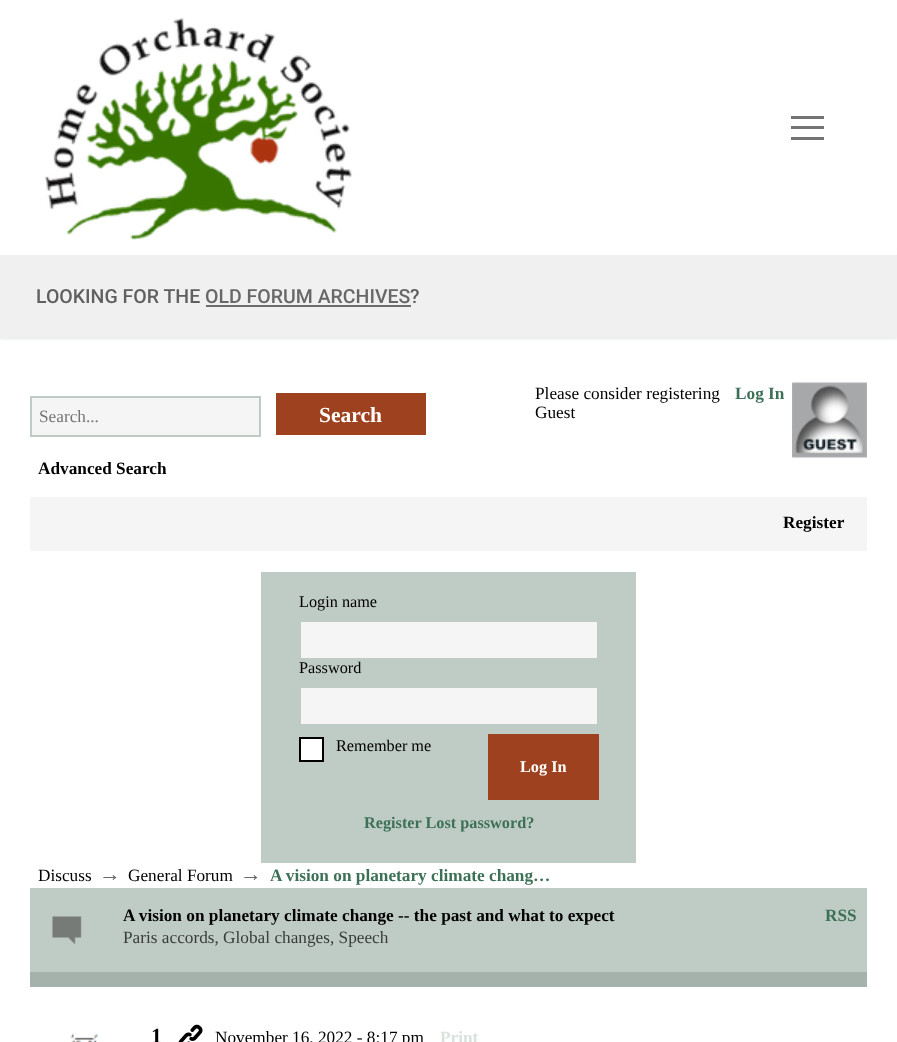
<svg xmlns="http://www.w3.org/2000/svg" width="897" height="1042">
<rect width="100%" height="100%" fill="#fff"/>
<image x="45" y="17" width="308" height="223" href="media/1.png"/>
<rect x="791" y="126" width="33" height="3" fill="#737373"/>
<rect x="791" y="116" width="33" height="3" fill="#737373"/>
<rect x="791" y="137" width="33" height="3" fill="#737373"/>
<rect y="257" width="897" height="82" fill="#e1e5ea" filter="blur(1.5px)"/>
<rect y="255" width="897" height="83" fill="#f0f0f0"/>
<text x="36" y="303" style="font-family:Roboto;font-size:19.5px;font-weight:500;fill:#606060">LOOKING FOR THE</text>
<text x="205" y="303" style="font-family:Roboto;font-size:19.5px;font-weight:500;fill:#686868">OLD FORUM ARCHIVES</text>
<rect x="206" y="305" width="205" height="2" fill="#6c6c6c"/>
<text x="410" y="303" style="font-family:Roboto;font-size:19.5px;font-weight:500;fill:#606060">?</text>
<text x="535" y="399" style="font-family:Liberation Serif;font-size:17.25px;fill:#000">Please consider registering</text>
<text x="535" y="418" style="font-family:Liberation Serif;font-size:17.25px;fill:#000">Guest</text>
<text x="735" y="399" style="font-family:Liberation Serif;font-size:17.25px;font-weight:bold;fill:#3d7157">Log In</text>
<image x="792" y="382" width="75" height="76" href="media/2.png"/>
<rect x="31" y="397" width="229" height="39" fill="#f5f5f5" stroke="#bfcbc5" stroke-width="2"/>
<text x="39" y="422" style="font-family:Liberation Serif;font-size:17.25px;fill:#757575">Search...</text>
<rect x="276" y="393" width="150" height="42" fill="#9d411f"/>
<text x="319" y="422" style="font-family:Liberation Serif;font-size:21.5px;font-weight:bold;fill:#fff">Search</text>
<text x="38" y="474" style="font-family:Liberation Serif;font-size:17.25px;font-weight:bold;fill:#000">Advanced Search</text>
<rect x="30" y="497" width="837" height="54" fill="#f5f5f5"/>
<text x="783" y="528" style="font-family:Liberation Serif;font-size:17.25px;font-weight:bold;fill:#000">Register</text>
<rect x="261" y="572" width="375" height="291" fill="#bfcbc5"/>
<text x="299" y="607" style="font-family:Liberation Serif;font-size:16.25px;fill:#000">Login name</text>
<rect x="301" y="622" width="296" height="36" fill="#f5f5f5"/>
<text x="299" y="673" style="font-family:Liberation Serif;font-size:16.25px;fill:#000">Password</text>
<rect x="301" y="688" width="296" height="36" fill="#f5f5f5"/>
<rect x="300" y="738" width="23" height="23" fill="#fff" stroke="#000" stroke-width="2"/>
<text x="336" y="751" style="font-family:Liberation Serif;font-size:16.25px;fill:#000">Remember me</text>
<rect x="488" y="734" width="111" height="66" fill="#9d411f"/>
<text x="520" y="772" style="font-family:Liberation Serif;font-size:16.25px;font-weight:bold;fill:#fff">Log In</text>
<text x="364" y="828" style="font-family:Liberation Serif;font-size:16.25px;font-weight:bold;fill:#3d7157">Register Lost password?</text>
<text x="38" y="881" style="font-family:Liberation Serif;font-size:17.25px;fill:#000">Discuss</text>
<text x="99" y="881" style="font-family:Liberation Serif;font-size:21.5px;fill:#686868">→</text>
<text x="128" y="881" style="font-family:Liberation Serif;font-size:17.25px;fill:#000">General Forum</text>
<text x="240" y="881" style="font-family:Liberation Serif;font-size:21.5px;fill:#686868">→</text>
<text x="270" y="881" style="font-family:Liberation Serif;font-size:17.25px;font-weight:bold;fill:#3d7157">A vision on planetary climate chang…</text>
<rect x="30" y="888" width="837" height="84" fill="#bfcbc5"/>
<image x="52" y="916" width="30" height="28" href="media/3.png"/>
<text x="123" y="921" style="font-family:Liberation Serif;font-size:17.25px;font-weight:bold;fill:#000">A vision on planetary climate change -- the past and what to expect</text>
<text x="123" y="943" style="font-family:Liberation Serif;font-size:17.25px;fill:#393d3b">Paris accords, Global changes, Speech</text>
<text x="825" y="921" style="font-family:Liberation Serif;font-size:17.25px;font-weight:bold;fill:#3d7157">RSS</text>
<rect x="30" y="972" width="837" height="15" fill="#a5b1ab"/>
<image x="70" y="1033" width="28" height="9" href="media/4.png"/>
<text x="151" y="1043" style="font-family:Liberation Serif;font-size:21.5px;font-weight:bold;fill:#000">1</text>
<image x="178" y="1024" width="25" height="18" href="media/5.png"/>
<text x="215" y="1043" style="font-family:Liberation Serif;font-size:17.25px;fill:#000">November 16, 2022 - 8:17 pm</text>
<text x="440" y="1043" style="font-family:Liberation Serif;font-size:17.25px;font-weight:bold;fill:#d8e3dd">Print</text>
</svg>
